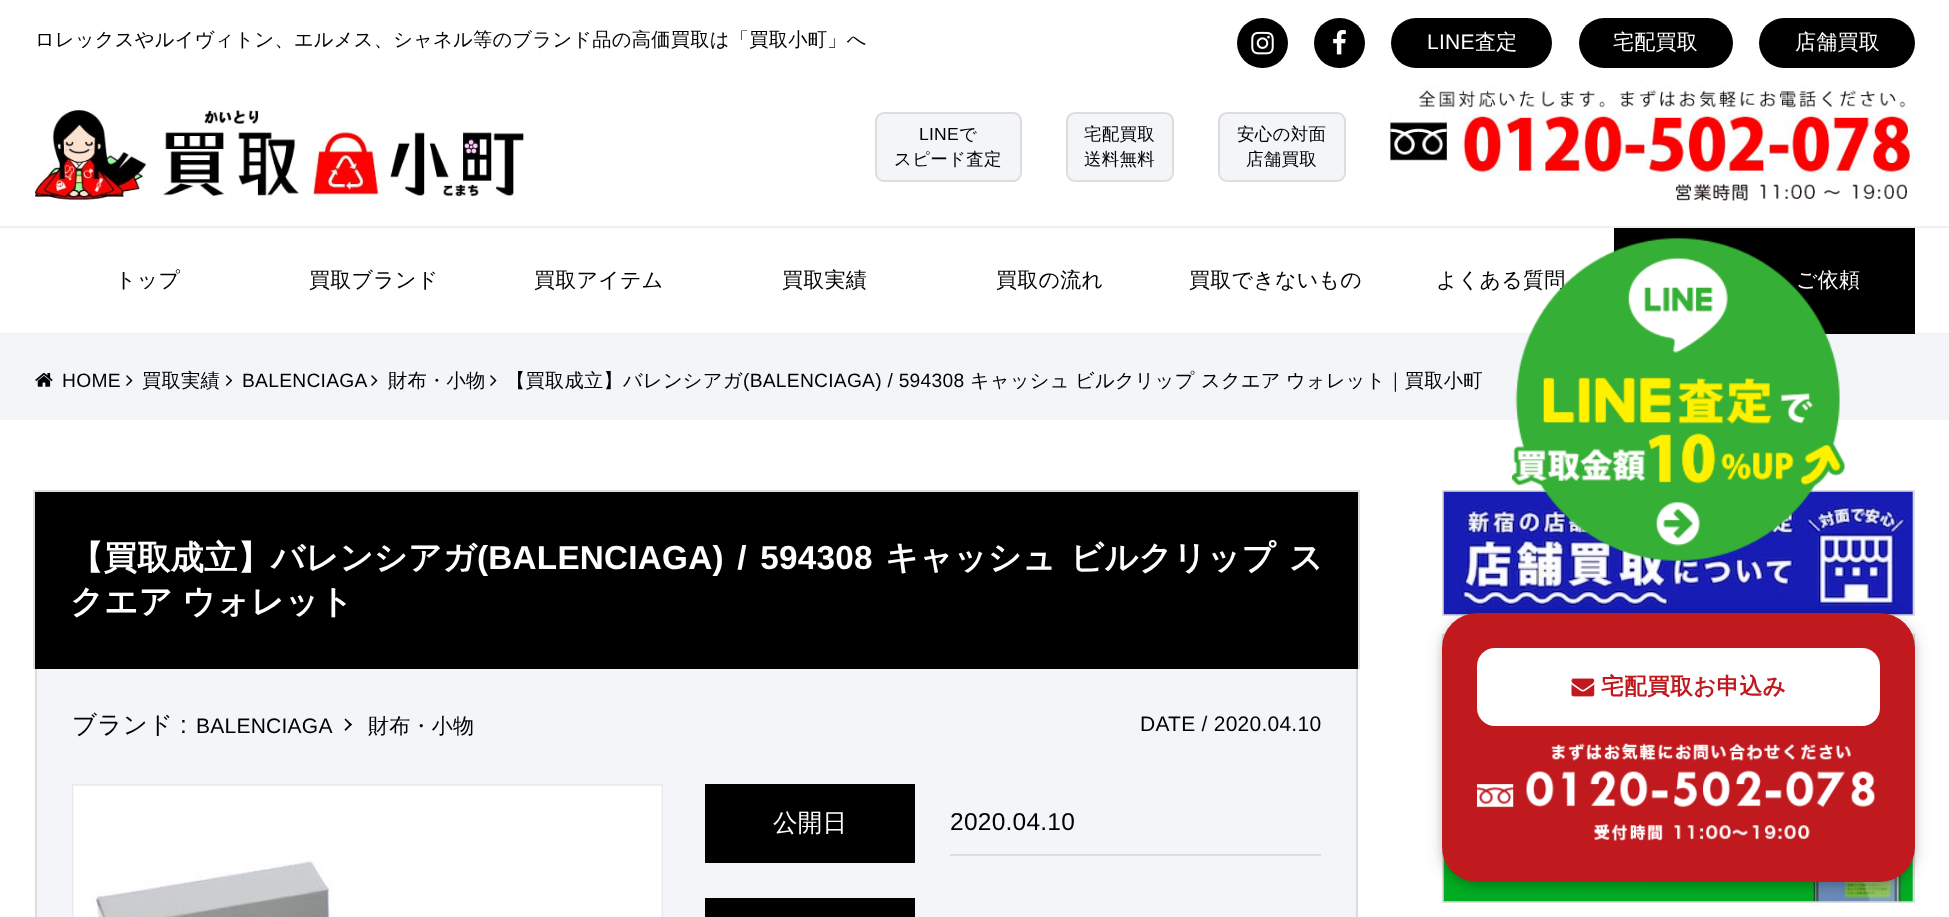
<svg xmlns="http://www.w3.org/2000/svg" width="1949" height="917">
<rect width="100%" height="100%" fill="#fff"/>
<text x="35" y="46" style="font-family:WenQuanYi Zen Hei;font-size:19.25px;font-weight:500;letter-spacing:0.25px;fill:#000">ロレックスやルイヴィトン、エルメス、シャネル等のブランド品の高価買取は「買取小町」へ</text>
<rect x="1237" y="18" width="51" height="50" rx="25" fill="#000"/>
<image x="1251" y="31" width="23" height="24" href="media/1.png"/>
<rect x="1314" y="18" width="51" height="50" rx="25" fill="#000"/>
<image x="1333" y="30" width="13" height="25" href="media/2.png"/>
<rect x="1391" y="18" width="161" height="50" rx="25" fill="#000"/>
<text x="1427" y="49" style="font-family:Liberation Sans;font-size:21px;letter-spacing:0.25px;fill:#fff">LINE</text>
<text x="1475" y="49" style="font-family:WenQuanYi Zen Hei;font-size:21px;font-weight:500;letter-spacing:0.25px;fill:#fff">査定</text>
<rect x="1579" y="18" width="154" height="50" rx="25" fill="#000"/>
<text x="1613" y="49" style="font-family:WenQuanYi Zen Hei;font-size:21px;font-weight:500;letter-spacing:0.25px;fill:#fff">宅配買取</text>
<rect x="1759" y="18" width="156" height="50" rx="25" fill="#000"/>
<text x="1795" y="49" style="font-family:WenQuanYi Zen Hei;font-size:21px;font-weight:500;letter-spacing:0.25px;fill:#fff">店舗買取</text>
<image x="35" y="110" width="489" height="91" href="media/3.png"/>
<rect x="876" y="113" width="145" height="68" rx="8" fill="#f3f5f9" stroke="#ddd" stroke-width="2"/>
<text x="919" y="140" style="font-family:Liberation Sans;font-size:17.5px;letter-spacing:0.25px;fill:#000">LINE</text>
<text x="959" y="140" style="font-family:WenQuanYi Zen Hei;font-size:17.5px;font-weight:500;letter-spacing:0.25px;fill:#000">で</text>
<text x="894" y="165" style="font-family:WenQuanYi Zen Hei;font-size:17.5px;font-weight:500;letter-spacing:0.25px;fill:#000">スピード査定</text>
<rect x="1067" y="113" width="106" height="68" rx="8" fill="#f3f5f9" stroke="#ddd" stroke-width="2"/>
<text x="1084" y="140" style="font-family:WenQuanYi Zen Hei;font-size:17.5px;font-weight:500;letter-spacing:0.25px;fill:#000">宅配買取</text>
<text x="1084" y="165" style="font-family:WenQuanYi Zen Hei;font-size:17.5px;font-weight:500;letter-spacing:0.25px;fill:#000">送料無料</text>
<rect x="1219" y="113" width="126" height="68" rx="8" fill="#f3f5f9" stroke="#ddd" stroke-width="2"/>
<text x="1237" y="140" style="font-family:WenQuanYi Zen Hei;font-size:17.5px;font-weight:500;letter-spacing:0.25px;fill:#000">安心の対面</text>
<text x="1246" y="165" style="font-family:WenQuanYi Zen Hei;font-size:17.5px;font-weight:500;letter-spacing:0.25px;fill:#000">店舗買取</text>
<image x="1389" y="86" width="526" height="115" href="media/4.png"/>
<rect y="226" width="1949" height="2" fill="#efefef"/>
<rect y="333" width="1949" height="1" fill="#efefef"/>
<text x="115" y="287" style="font-family:WenQuanYi Zen Hei;font-size:21px;font-weight:500;letter-spacing:0.25px;fill:#000">トップ</text>
<text x="309" y="287" style="font-family:WenQuanYi Zen Hei;font-size:21px;font-weight:500;letter-spacing:0.25px;fill:#000">買取ブランド</text>
<text x="534" y="287" style="font-family:WenQuanYi Zen Hei;font-size:21px;font-weight:500;letter-spacing:0.25px;fill:#000">買取アイテム</text>
<text x="782" y="287" style="font-family:WenQuanYi Zen Hei;font-size:21px;font-weight:500;letter-spacing:0.25px;fill:#000">買取実績</text>
<text x="996" y="287" style="font-family:WenQuanYi Zen Hei;font-size:21px;font-weight:500;letter-spacing:0.25px;fill:#000">買取の流れ</text>
<text x="1189" y="287" style="font-family:WenQuanYi Zen Hei;font-size:21px;font-weight:500;letter-spacing:0.25px;fill:#000">買取できないもの</text>
<text x="1436" y="287" style="font-family:WenQuanYi Zen Hei;font-size:21px;font-weight:500;letter-spacing:0.25px;fill:#000">よくある質問</text>
<rect x="1614" y="228" width="301" height="105" fill="#000"/>
<text x="1796" y="287" style="font-family:WenQuanYi Zen Hei;font-size:21px;font-weight:500;letter-spacing:0.25px;fill:#fff">ご依頼</text>
<rect x="1824" y="333" width="91" height="1" fill="#000"/>
<rect y="334" width="1949" height="86" fill="#f3f5f9"/>
<image x="35" y="373" width="18" height="14" href="media/5.png"/>
<text x="62" y="387" style="font-family:Liberation Sans;font-size:19.25px;letter-spacing:0.25px;fill:#000">HOME</text>
<image x="126" y="375" width="7" height="11" href="media/6.png"/>
<text x="142" y="387" style="font-family:WenQuanYi Zen Hei;font-size:19.25px;font-weight:500;letter-spacing:0.25px;fill:#000">買取実績</text>
<image x="225" y="375" width="8" height="11" href="media/7.png"/>
<text x="242" y="387" style="font-family:Liberation Sans;font-size:19.25px;letter-spacing:0.25px;fill:#000">BALENCIAGA</text>
<image x="371" y="375" width="7" height="11" href="media/6.png"/>
<text x="388" y="387" style="font-family:WenQuanYi Zen Hei;font-size:19.25px;font-weight:500;letter-spacing:0.25px;fill:#000">財布・小物</text>
<image x="490" y="375" width="7" height="11" href="media/6.png"/>
<text x="506" y="387" style="font-family:WenQuanYi Zen Hei;font-size:19.25px;font-weight:500;letter-spacing:0.25px;fill:#000">【買取成立】バレンシアガ</text>
<text x="743" y="387" style="font-family:Liberation Sans;font-size:19.25px;letter-spacing:0.25px;fill:#000">(BALENCIAGA) / 594308</text>
<text x="970" y="387" style="font-family:WenQuanYi Zen Hei;font-size:19.25px;font-weight:500;letter-spacing:0.25px;fill:#000">キャッシュ</text>
<text x="1075" y="387" style="font-family:WenQuanYi Zen Hei;font-size:19.25px;font-weight:500;letter-spacing:0.25px;fill:#000">ビルクリップ</text>
<text x="1201" y="387" style="font-family:WenQuanYi Zen Hei;font-size:19.25px;font-weight:500;letter-spacing:0.25px;fill:#000">スクエア</text>
<text x="1286" y="387" style="font-family:WenQuanYi Zen Hei;font-size:19.25px;font-weight:500;letter-spacing:0.25px;fill:#000">ウォレット｜買取小町</text>
<rect x="1443" y="491" width="471" height="124" fill="none" stroke="#ddd" stroke-width="2"/>
<image x="1443" y="491" width="470" height="124" href="media/10.png"/>
<image x="1512" y="238" width="333" height="323" href="media/8.png"/>
<rect x="37" y="669" width="1319" height="248" fill="#f3f5f9"/>
<rect x="1356" y="669" width="2" height="248" fill="#ddd"/>
<rect x="35" y="669" width="2" height="248" fill="#ddd"/>
<rect x="35" y="492" width="1323" height="177" fill="#000"/>
<rect x="33" y="490" width="1327" height="2" fill="#ddd"/>
<rect x="1358" y="490" width="2" height="179" fill="#ddd"/>
<rect x="33" y="490" width="2" height="179" fill="#ddd"/>
<text x="70" y="569" style="font-family:WenQuanYi Zen Hei;font-size:33.25px;font-weight:bold;letter-spacing:0.25px;fill:#fff">【買取成立】バレンシアガ</text>
<text x="477" y="569" word-spacing="4" style="font-family:Liberation Sans;font-size:33.25px;font-weight:bold;letter-spacing:0.25px;fill:#fff">(BALENCIAGA) / 594308</text>
<text x="885" y="569" style="font-family:WenQuanYi Zen Hei;font-size:33.25px;font-weight:bold;letter-spacing:0.25px;fill:#fff">キャッシュ</text>
<text x="1070" y="569" style="font-family:WenQuanYi Zen Hei;font-size:33.25px;font-weight:bold;letter-spacing:0.25px;fill:#fff">ビルクリップ</text>
<text x="1289" y="569" style="font-family:WenQuanYi Zen Hei;font-size:33.25px;font-weight:bold;letter-spacing:0.25px;fill:#fff">ス</text>
<text x="70" y="613" word-spacing="-1" style="font-family:WenQuanYi Zen Hei;font-size:33.25px;font-weight:bold;letter-spacing:0.25px;fill:#fff">クエア ウォレット</text>
<text x="72" y="733" style="font-family:WenQuanYi Zen Hei;font-size:24.5px;font-weight:500;letter-spacing:0.25px;fill:#000">ブランド</text>
<text x="180" y="733" style="font-family:Liberation Sans;font-size:24.5px;letter-spacing:0.25px;fill:#000">:</text>
<text x="196" y="733" style="font-family:Liberation Sans;font-size:21px;letter-spacing:0.25px;fill:#000">BALENCIAGA</text>
<path d="M344.5 719.5l1-1l6.5 6l-1.5 1.5z" fill="#000"/>
<path d="M344.5 729.5l6-6l1.5 1l-6.5 6.5z" fill="#000"/>
<text x="368" y="733" style="font-family:WenQuanYi Zen Hei;font-size:21px;font-weight:500;letter-spacing:0.25px;fill:#000">財布・小物</text>
<text x="1140" y="731" style="font-family:Liberation Sans;font-size:21px;letter-spacing:0.25px;fill:#000">DATE / 2020.04.10</text>
<rect x="73" y="785" width="589" height="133" fill="none" stroke="#eaeaea" stroke-width="2"/>
<image x="73" y="785" width="589" height="132" href="media/9.png"/>
<rect x="705" y="784" width="210" height="79" fill="#000"/>
<text x="773" y="831" style="font-family:WenQuanYi Zen Hei;font-size:24.5px;font-weight:500;letter-spacing:0.25px;fill:#fff">公開日</text>
<rect x="950" y="854" width="371" height="2" fill="#ddd"/>
<text x="950" y="830" style="font-family:Liberation Sans;font-size:24.5px;letter-spacing:0.25px;fill:#000">2020.04.10</text>
<rect x="705" y="898" width="210" height="19" fill="#000"/>
<rect x="1443" y="635" width="471" height="124" fill="none" stroke="#ddd" stroke-width="2"/>
<image x="1443" y="635" width="470" height="5" href="media/11.png"/>
<rect x="1443" y="778" width="471" height="124" fill="none" stroke="#ddd" stroke-width="2"/>
<image x="1443" y="855" width="470" height="47" href="media/12.png"/>
<rect x="1442" y="616" width="473" height="270" rx="35" fill="#0000001f" filter="blur(9px)"/>
<rect x="1442" y="616" width="473" height="270" rx="35" fill="#00000029" filter="blur(4.5px)"/>
<rect x="1442" y="613" width="473" height="269" rx="35" fill="#c01a1f"/>
<rect x="1477" y="648" width="403" height="78" rx="18" fill="#fff"/>
<image x="1571" y="678" width="24" height="19" href="media/13.png"/>
<text x="1601" y="694" style="font-family:WenQuanYi Zen Hei;font-size:22.75px;font-weight:bold;letter-spacing:0.25px;fill:#c01a1f">宅配買取お申込み</text>
<image x="1477" y="743" width="398" height="98" href="media/14.png"/>
</svg>
